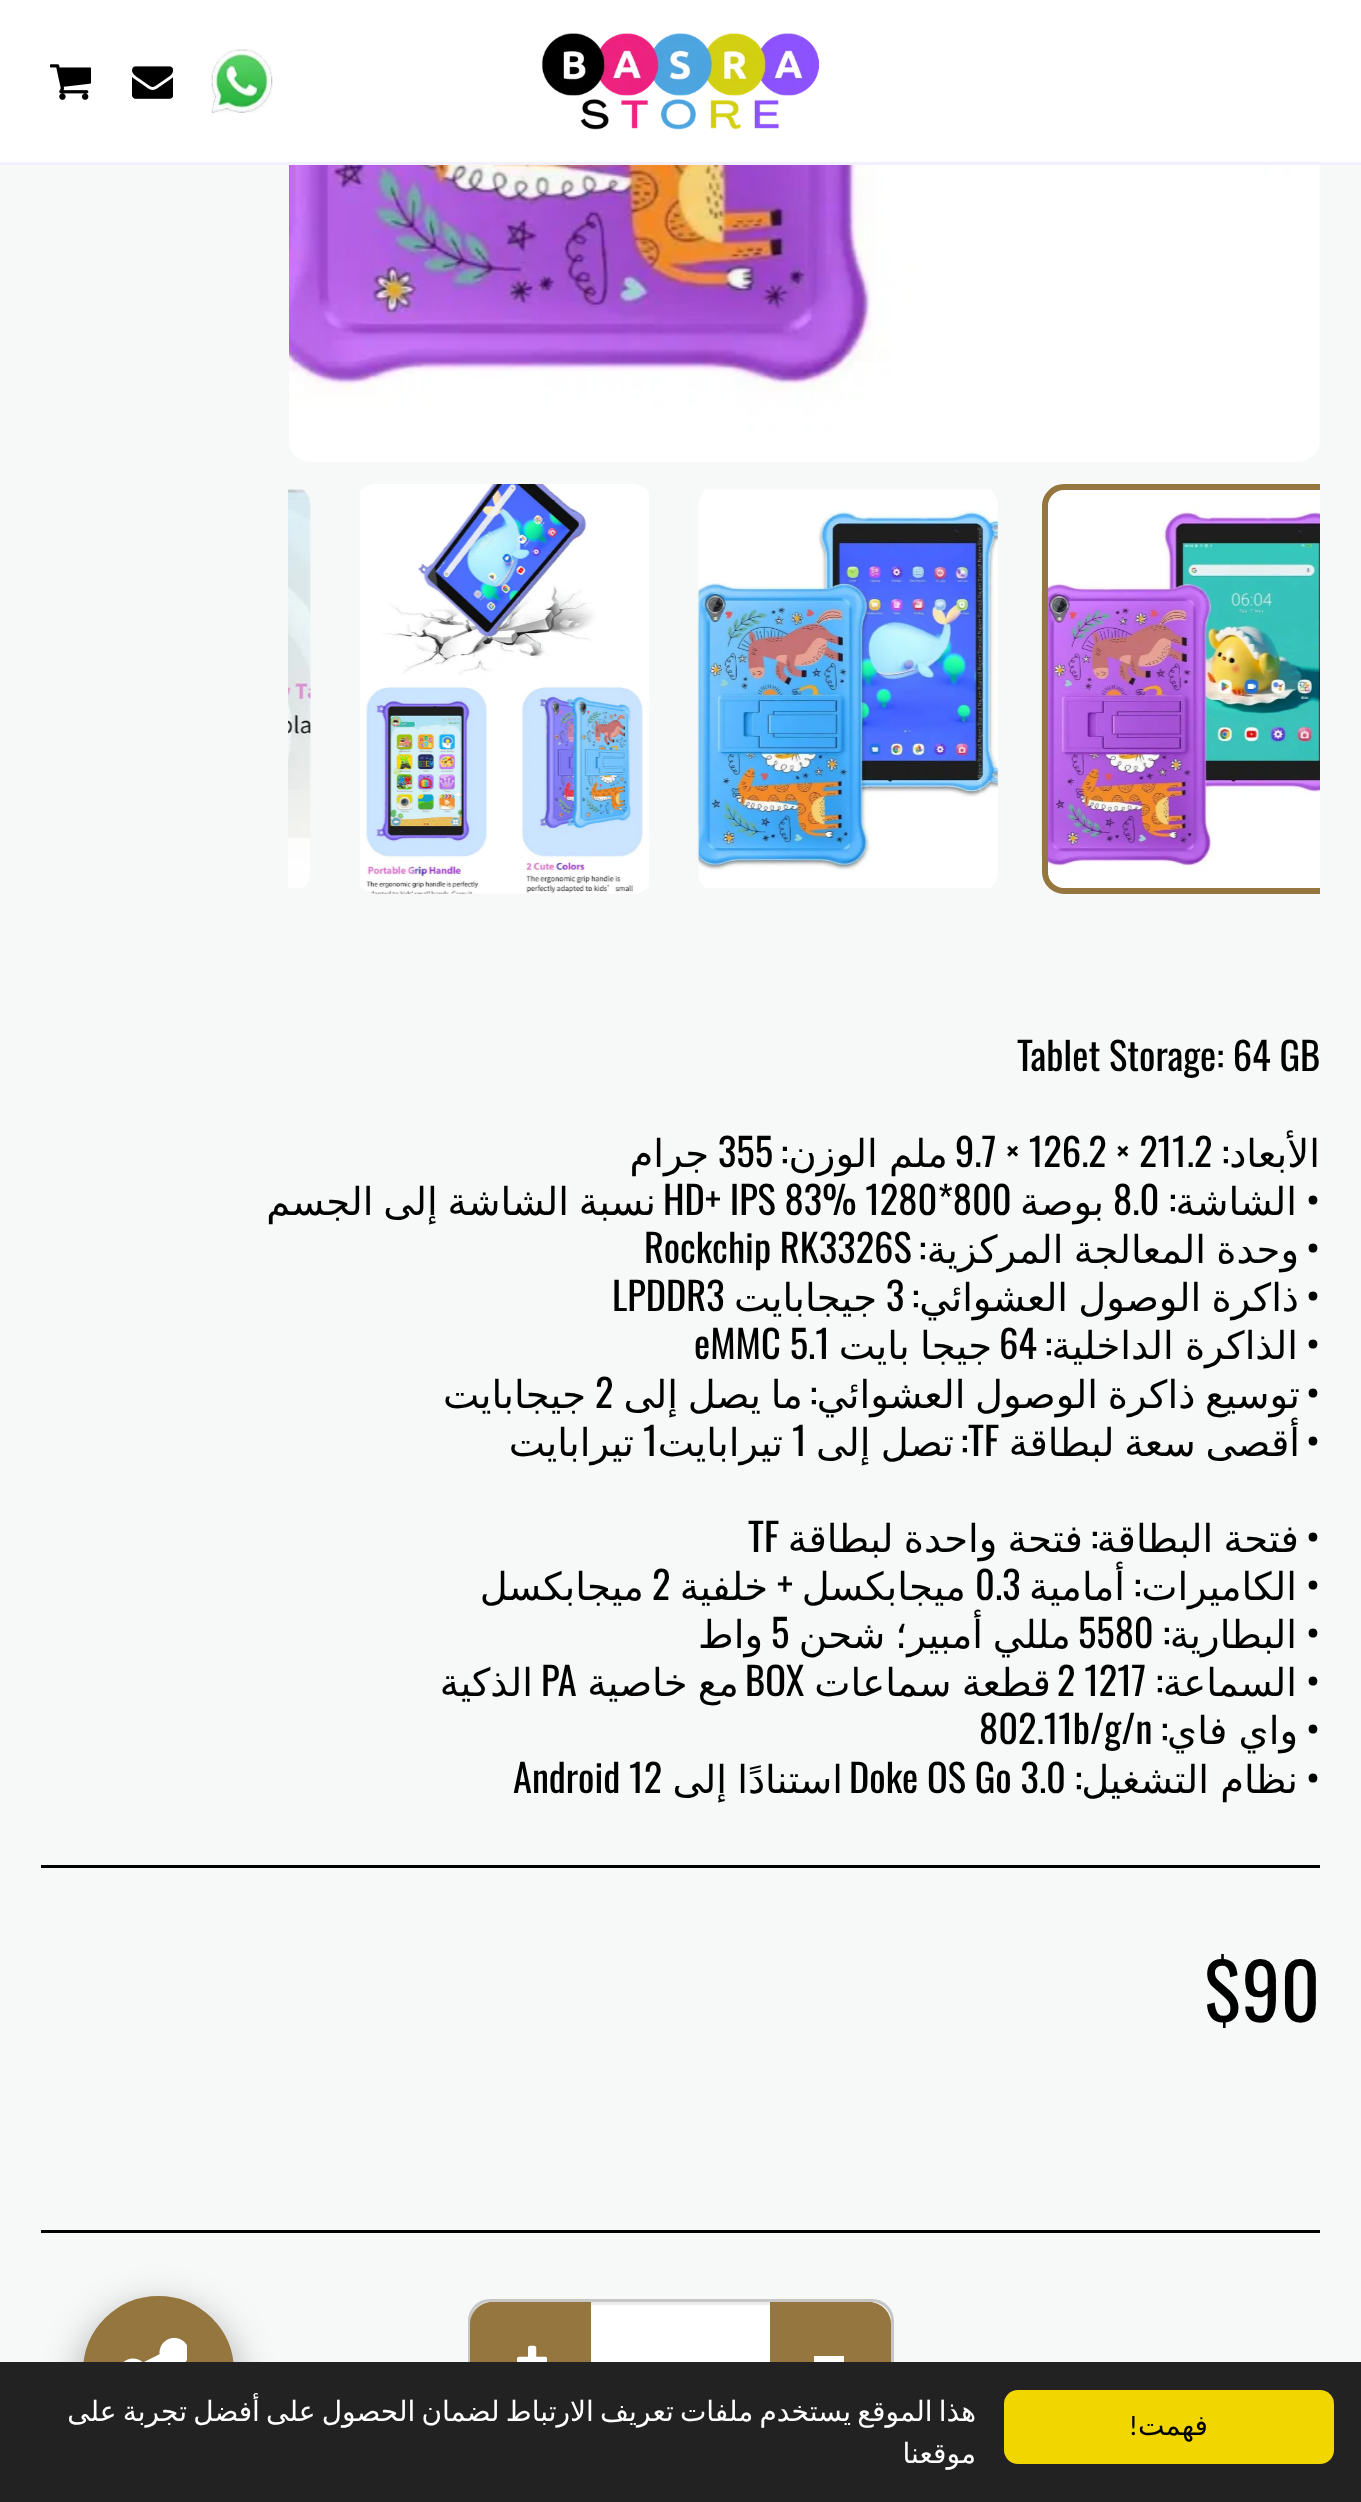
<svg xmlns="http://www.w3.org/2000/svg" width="1361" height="2502">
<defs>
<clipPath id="clip1"><rect x="289" y="484" width="1031" height="424"/></clipPath>
</defs>
<rect width="100%" height="100%" fill="#f7f9f8"/>
<rect width="1361" height="162" fill="#fff"/>
<rect y="162" width="1361" height="3" fill="#f2f0fc"/>
<image x="541" y="33" width="279" height="97" href="media/1.png"/>
<image x="211" y="49" width="62" height="64" href="media/2.png"/>
<image x="132" y="66" width="41" height="33" href="media/3.png"/>
<image x="50" y="64" width="41" height="36" href="media/4.png"/>
<image x="289" y="165" width="1031" height="297" href="media/5.png"/>
<image x="1041" y="489" width="279" height="399" href="media/6.png"/>
<g clip-path="url(#clip1)">
<rect x="1045" y="487" width="294" height="404" rx="19" fill="none" stroke="#94763e" stroke-width="6"/>
</g>
<image x="697" y="489" width="302" height="399" href="media/7.png"/>
<image x="360" y="484" width="289" height="410" href="media/8.png"/>
<image x="288" y="489" width="23" height="399" href="media/9.png"/>
<text x="1017" y="1071" style="font-family:Oswald;font-size:38.5px;fill:#000">Tablet Storage: 64 GB</text>
<text x="1320" y="1167" style="font-family:DejaVu Sans;font-size:38.5px;direction:rtl;fill:#000">الأبعاد</text>
<text x="1229" y="1167" style="font-family:Oswald;font-size:38.5px;direction:rtl;fill:#000">:</text>
<text x="955" y="1167" style="font-family:Oswald;font-size:38.5px;fill:#000">9.7 × 126.2 × 211.2</text>
<text x="948" y="1167" word-spacing="-1" style="font-family:DejaVu Sans;font-size:38.5px;direction:rtl;fill:#000">ملم الوزن</text>
<text x="788" y="1167" style="font-family:Oswald;font-size:38.5px;direction:rtl;fill:#000">:</text>
<text x="718" y="1167" style="font-family:Oswald;font-size:38.5px;fill:#000">355</text>
<text x="709" y="1167" style="font-family:DejaVu Sans;font-size:38.5px;direction:rtl;fill:#000">جرام</text>
<text x="1320" y="1215" style="font-family:Oswald;font-size:38.5px;direction:rtl;fill:#000">•</text>
<text x="1297" y="1215" style="font-family:DejaVu Sans;font-size:38.5px;direction:rtl;fill:#000">الشاشة</text>
<text x="1176" y="1215" style="font-family:Oswald;font-size:38.5px;direction:rtl;fill:#000">:</text>
<text x="1113" y="1215" style="font-family:Oswald;font-size:38.5px;fill:#000">8.0</text>
<text x="1104" y="1215" style="font-family:DejaVu Sans;font-size:38.5px;direction:rtl;fill:#000">بوصة</text>
<text x="663" y="1215" style="font-family:Oswald;font-size:38.5px;fill:#000">HD+ IPS 83% 1280*800</text>
<text x="656" y="1215" word-spacing="-2.5" style="font-family:DejaVu Sans;font-size:38.5px;direction:rtl;fill:#000">نسبة الشاشة إلى الجسم</text>
<text x="1320" y="1263" style="font-family:Oswald;font-size:38.5px;direction:rtl;fill:#000">•</text>
<text x="1299" y="1263" word-spacing="-2" style="font-family:DejaVu Sans;font-size:38.5px;direction:rtl;fill:#000">وحدة المعالجة المركزية</text>
<text x="926" y="1263" style="font-family:Oswald;font-size:38.5px;direction:rtl;fill:#000">:</text>
<text x="644" y="1263" style="font-family:Oswald;font-size:38.5px;fill:#000">Rockchip RK3326S</text>
<text x="1320" y="1311" style="font-family:Oswald;font-size:38.5px;direction:rtl;fill:#000">•</text>
<text x="1299" y="1311" word-spacing="-2" style="font-family:DejaVu Sans;font-size:38.5px;direction:rtl;fill:#000">ذاكرة الوصول العشوائي</text>
<text x="919" y="1311" style="font-family:Oswald;font-size:38.5px;direction:rtl;fill:#000">:</text>
<text x="886" y="1311" style="font-family:Oswald;font-size:38.5px;fill:#000">3</text>
<text x="877" y="1311" style="font-family:DejaVu Sans;font-size:38.5px;direction:rtl;fill:#000">جيجابايت</text>
<text x="612" y="1311" style="font-family:Oswald;font-size:38.5px;fill:#000">LPDDR3</text>
<text x="1320" y="1359" style="font-family:Oswald;font-size:38.5px;direction:rtl;fill:#000">•</text>
<text x="1298" y="1359" word-spacing="-1" style="font-family:DejaVu Sans;font-size:38.5px;direction:rtl;fill:#000">الذاكرة الداخلية</text>
<text x="1052" y="1359" style="font-family:Oswald;font-size:38.5px;direction:rtl;fill:#000">:</text>
<text x="999" y="1359" style="font-family:Oswald;font-size:38.5px;fill:#000">64</text>
<text x="992" y="1359" word-spacing="-2" style="font-family:DejaVu Sans;font-size:38.5px;direction:rtl;fill:#000">جيجا بايت</text>
<text x="694" y="1359" style="font-family:Oswald;font-size:38.5px;fill:#000">eMMC 5.1</text>
<text x="1320" y="1408" style="font-family:Oswald;font-size:38.5px;direction:rtl;fill:#000">•</text>
<text x="1300" y="1408" word-spacing="-2.5" style="font-family:DejaVu Sans;font-size:38.5px;direction:rtl;fill:#000">توسيع ذاكرة الوصول العشوائي</text>
<text x="817" y="1408" style="font-family:Oswald;font-size:38.5px;direction:rtl;fill:#000">:</text>
<text x="803" y="1408" word-spacing="-2.5" style="font-family:DejaVu Sans;font-size:38.5px;direction:rtl;fill:#000">ما يصل إلى</text>
<text x="595" y="1408" style="font-family:Oswald;font-size:38.5px;fill:#000">2</text>
<text x="586" y="1408" style="font-family:DejaVu Sans;font-size:38.5px;direction:rtl;fill:#000">جيجابايت</text>
<text x="1320" y="1456" style="font-family:Oswald;font-size:38.5px;direction:rtl;fill:#000">•</text>
<text x="1300" y="1456" word-spacing="-2.5" style="font-family:DejaVu Sans;font-size:38.5px;direction:rtl;fill:#000">أقصى سعة لبطاقة</text>
<text x="968" y="1456" style="font-family:Oswald;font-size:38.5px;fill:#000">TF</text>
<text x="968" y="1456" style="font-family:Oswald;font-size:38.5px;direction:rtl;fill:#000">:</text>
<text x="954" y="1456" word-spacing="-2" style="font-family:DejaVu Sans;font-size:38.5px;direction:rtl;fill:#000">تصل إلى</text>
<text x="792" y="1456" style="font-family:Oswald;font-size:38.5px;fill:#000">1</text>
<text x="783" y="1456" style="font-family:DejaVu Sans;font-size:38.5px;direction:rtl;fill:#000">تيرابايت</text>
<text x="643" y="1456" style="font-family:Oswald;font-size:38.5px;fill:#000">1</text>
<text x="634" y="1456" style="font-family:DejaVu Sans;font-size:38.5px;direction:rtl;fill:#000">تيرابايت</text>
<text x="1320" y="1552" style="font-family:Oswald;font-size:38.5px;direction:rtl;fill:#000">•</text>
<text x="1299" y="1552" word-spacing="-2" style="font-family:DejaVu Sans;font-size:38.5px;direction:rtl;fill:#000">فتحة البطاقة</text>
<text x="1098" y="1552" style="font-family:Oswald;font-size:38.5px;direction:rtl;fill:#000">:</text>
<text x="1083" y="1552" word-spacing="-2" style="font-family:DejaVu Sans;font-size:38.5px;direction:rtl;fill:#000">فتحة واحدة لبطاقة</text>
<text x="748" y="1552" style="font-family:Oswald;font-size:38.5px;fill:#000">TF</text>
<text x="1320" y="1600" style="font-family:Oswald;font-size:38.5px;direction:rtl;fill:#000">•</text>
<text x="1297" y="1600" style="font-family:DejaVu Sans;font-size:38.5px;direction:rtl;fill:#000">الكاميرات</text>
<text x="1141" y="1600" style="font-family:Oswald;font-size:38.5px;direction:rtl;fill:#000">:</text>
<text x="1125" y="1600" style="font-family:DejaVu Sans;font-size:38.5px;direction:rtl;fill:#000">أمامية</text>
<text x="975" y="1600" style="font-family:Oswald;font-size:38.5px;fill:#000">0.3</text>
<text x="966" y="1600" style="font-family:DejaVu Sans;font-size:38.5px;direction:rtl;fill:#000">ميجابكسل</text>
<text x="793" y="1600" style="font-family:Oswald;font-size:38.5px;direction:rtl;fill:#000">+</text>
<text x="768" y="1600" style="font-family:DejaVu Sans;font-size:38.5px;direction:rtl;fill:#000">خلفية</text>
<text x="652" y="1600" style="font-family:Oswald;font-size:38.5px;fill:#000">2</text>
<text x="644" y="1600" style="font-family:DejaVu Sans;font-size:38.5px;direction:rtl;fill:#000">ميجابكسل</text>
<text x="1320" y="1648" style="font-family:Oswald;font-size:38.5px;direction:rtl;fill:#000">•</text>
<text x="1297" y="1648" style="font-family:DejaVu Sans;font-size:38.5px;direction:rtl;fill:#000">البطارية</text>
<text x="1170" y="1648" style="font-family:Oswald;font-size:38.5px;direction:rtl;fill:#000">:</text>
<text x="1078" y="1648" style="font-family:Oswald;font-size:38.5px;fill:#000">5580</text>
<text x="1071" y="1648" word-spacing="-2.5" style="font-family:DejaVu Sans;font-size:38.5px;direction:rtl;fill:#000">مللي أمبير؛ شحن</text>
<text x="771" y="1648" style="font-family:Oswald;font-size:38.5px;fill:#000">5</text>
<text x="763" y="1648" style="font-family:DejaVu Sans;font-size:38.5px;direction:rtl;fill:#000">واط</text>
<text x="1320" y="1696" style="font-family:Oswald;font-size:38.5px;direction:rtl;fill:#000">•</text>
<text x="1297" y="1696" style="font-family:DejaVu Sans;font-size:38.5px;direction:rtl;fill:#000">السماعة</text>
<text x="1163" y="1696" style="font-family:Oswald;font-size:38.5px;direction:rtl;fill:#000">:</text>
<text x="1057" y="1696" style="font-family:Oswald;font-size:38.5px;fill:#000">2 1217</text>
<text x="1051" y="1696" word-spacing="-2" style="font-family:DejaVu Sans;font-size:38.5px;direction:rtl;fill:#000">قطعة سماعات</text>
<text x="745" y="1696" style="font-family:Oswald;font-size:38.5px;fill:#000">BOX</text>
<text x="739" y="1696" word-spacing="-2" style="font-family:DejaVu Sans;font-size:38.5px;direction:rtl;fill:#000">مع خاصية</text>
<text x="541" y="1696" style="font-family:Oswald;font-size:38.5px;fill:#000">PA</text>
<text x="533" y="1696" style="font-family:DejaVu Sans;font-size:38.5px;direction:rtl;fill:#000">الذكية</text>
<text x="1320" y="1744" style="font-family:Oswald;font-size:38.5px;direction:rtl;fill:#000">•</text>
<text x="1298" y="1744" word-spacing="-1" style="font-family:DejaVu Sans;font-size:38.5px;direction:rtl;fill:#000">واي فاي</text>
<text x="1168" y="1744" style="font-family:Oswald;font-size:38.5px;direction:rtl;fill:#000">:</text>
<text x="979" y="1744" style="font-family:Oswald;font-size:38.5px;fill:#000">802.11b/g/n</text>
<text x="1320" y="1793" style="font-family:Oswald;font-size:38.5px;direction:rtl;fill:#000">•</text>
<text x="1298" y="1793" word-spacing="-1" style="font-family:DejaVu Sans;font-size:38.5px;direction:rtl;fill:#000">نظام التشغيل</text>
<text x="1082" y="1793" style="font-family:Oswald;font-size:38.5px;direction:rtl;fill:#000">:</text>
<text x="849" y="1793" style="font-family:Oswald;font-size:38.5px;fill:#000">Doke OS Go 3.0</text>
<text x="843" y="1793" word-spacing="-2" style="font-family:DejaVu Sans;font-size:38.5px;direction:rtl;fill:#000">استنادًا إلى</text>
<text x="513" y="1793" style="font-family:Oswald;font-size:38.5px;fill:#000">Android 12</text>
<rect x="41" y="1865" width="1279" height="3" fill="#000"/>
<text x="1204" y="2022" style="font-family:Oswald;font-size:77px;fill:#000">$90</text>
<rect x="41" y="2230" width="1279" height="3" fill="#000"/>
<rect x="469.5" y="2300.5" width="423" height="115" rx="20.5" fill="none" stroke="#c6c7c6" stroke-width="3"/>
<path d="M767 2302h102c12 0 22 10 22 22v69c0 12-10 22-22 22h-102z" fill="#94763e"/>
<rect x="814" y="2356" width="30" height="6" fill="#fff"/>
<path d="M492 2302h102v113h-102c-12 0-22-10-22-22v-69c0-12 10-22 22-22z" fill="#94763e"/>
<rect x="591" y="2305" width="179" height="57" fill="#fff"/>
<rect x="591" y="2302" width="179" height="3" fill="#ececec"/>
<image x="517" y="2345" width="30" height="17" href="media/10.png"/>
<rect x="83" y="2310" width="151" height="151" rx="75.5" fill="#00000059" filter="blur(20.5px)"/>
<rect x="84.5" y="2297.5" width="148" height="149" rx="74" fill="#94763e" stroke="#94763e" stroke-width="3"/>
<image x="123" y="2337" width="64" height="25" href="media/11.png"/>
<rect y="2362" width="1361" height="140" fill="#222"/>
<rect x="1004" y="2390" width="330" height="74" rx="14" fill="#f1d600"/>
<text x="1208" y="2435" style="font-family:DejaVu Sans;font-size:28.05px;direction:rtl;fill:#000">فهمت</text>
<text x="1138" y="2435" style="font-family:Carlito;font-size:28.05px;direction:rtl;fill:#000">!</text>
<text x="976" y="2421" word-spacing="-2.75" style="font-family:DejaVu Sans;font-size:28.05px;direction:rtl;fill:#fff">هذا الموقع يستخدم ملفات تعريف الارتباط لضمان الحصول على أفضل تجربة على</text>
<text x="976" y="2463" style="font-family:DejaVu Sans;font-size:28.05px;direction:rtl;fill:#fff">موقعنا</text>
</svg>
